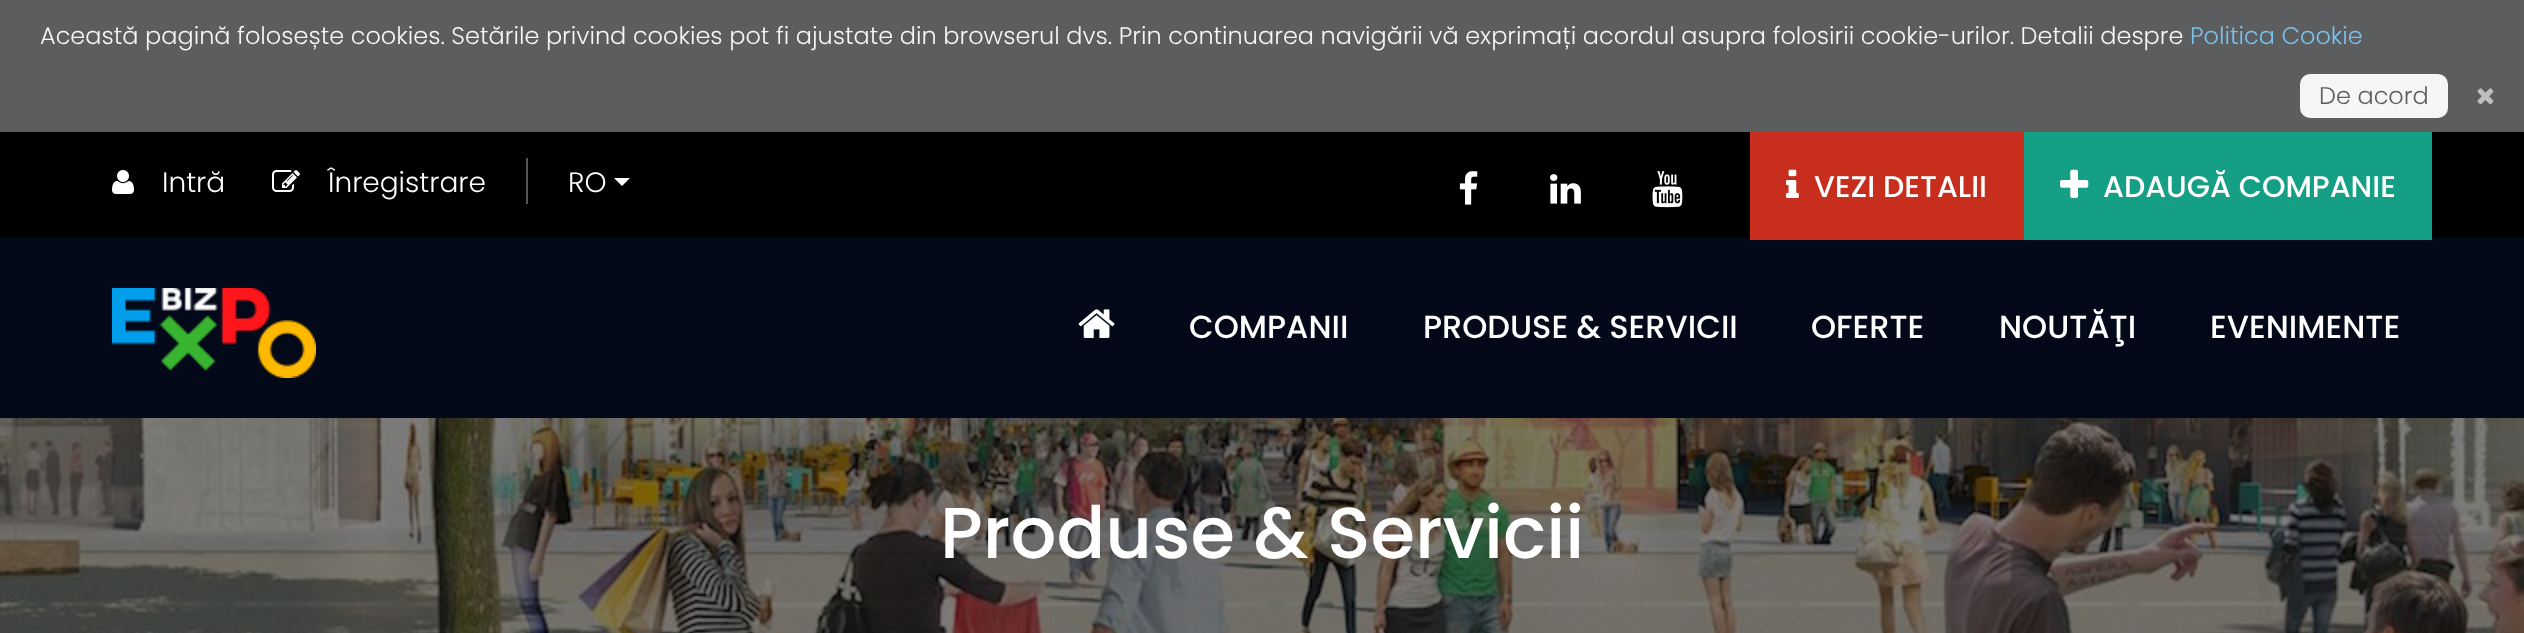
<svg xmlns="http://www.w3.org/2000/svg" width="2524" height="633">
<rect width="100%" height="100%" fill="#000"/>
<rect width="2524" height="132" fill="#5c5d5f"/>
<text x="40" y="44" style="font-family:Poppins;font-size:24px;font-weight:300;fill:#f5f6f7">Această pagină folosește cookies. Setările privind cookies pot fi ajustate din browserul dvs. Prin continuarea navigării vă exprimați acordul asupra folosirii cookie-urilor. Detalii despre</text>
<text x="2190" y="44" style="font-family:Poppins;font-size:24px;font-weight:300;fill:#79c2ee">Politica Cookie</text>
<rect x="2300" y="74" width="148" height="44" rx="10" fill="#f5f6f7"/>
<text x="2319" y="104" style="font-family:Poppins;font-size:24px;font-weight:300;fill:#5c5d5e">De acord</text>
<image x="2477" y="88" width="17" height="17" href="media/1.png"/>
<image x="112" y="170" width="22" height="24" href="media/2.png"/>
<text x="162" y="192" style="font-family:Poppins;font-size:28px;font-weight:300;fill:#fff">Intră</text>
<image x="272" y="170" width="28" height="22" href="media/3.png"/>
<text x="328" y="192" style="font-family:Poppins;font-size:28px;font-weight:300;fill:#fff">Înregistrare</text>
<rect x="526" y="158" width="2" height="46" fill="#555"/>
<text x="568" y="192" style="font-family:Poppins;font-size:28px;font-weight:300;fill:#fff">RO</text>
<path d="M614 178h16l-8 8z" fill="#fff"/>
<image x="1459" y="171" width="19" height="34" href="media/4.png"/>
<image x="1550" y="174" width="31" height="30" href="media/5.png"/>
<image x="1652" y="171" width="31" height="37" href="media/6.png"/>
<rect y="238" width="2524" height="180" fill="#030919"/>
<rect x="1750" y="132" width="274" height="108" fill="#c82e1e"/>
<image x="1786" y="169" width="13" height="29" href="media/7.png"/>
<text x="1814" y="197" style="font-family:Poppins;font-size:30px;font-weight:500;fill:#fff">VEZI DETALII</text>
<rect x="2024" y="132" width="408" height="108" fill="#159f85"/>
<image x="2060" y="169" width="29" height="29" href="media/8.png"/>
<text x="2103" y="197" style="font-family:Poppins;font-size:30px;font-weight:500;fill:#fff">ADAUGĂ COMPANIE</text>
<image x="112" y="288" width="204" height="90" href="media/9.png"/>
<image x="1078" y="309" width="37" height="29" href="media/10.png"/>
<text x="1189" y="338" style="font-family:Poppins;font-size:32px;font-weight:500;fill:#fff">COMPANII</text>
<text x="1423" y="338" style="font-family:Poppins;font-size:32px;font-weight:500;fill:#fff">PRODUSE &amp; SERVICII</text>
<text x="1811" y="338" style="font-family:Poppins;font-size:32px;font-weight:500;fill:#fff">OFERTE</text>
<text x="1999" y="338" style="font-family:Poppins;font-size:32px;font-weight:500;fill:#fff">NOUTĂŢI</text>
<text x="2210" y="338" style="font-family:Poppins;font-size:32px;font-weight:500;fill:#fff">EVENIMENTE</text>
<image x="0" y="418" width="2524" height="215" href="media/11.png"/>
<text x="940" y="558" style="font-family:Poppins;font-size:72px;font-weight:500;fill:#fff">Produse &amp; Servicii</text>
</svg>
